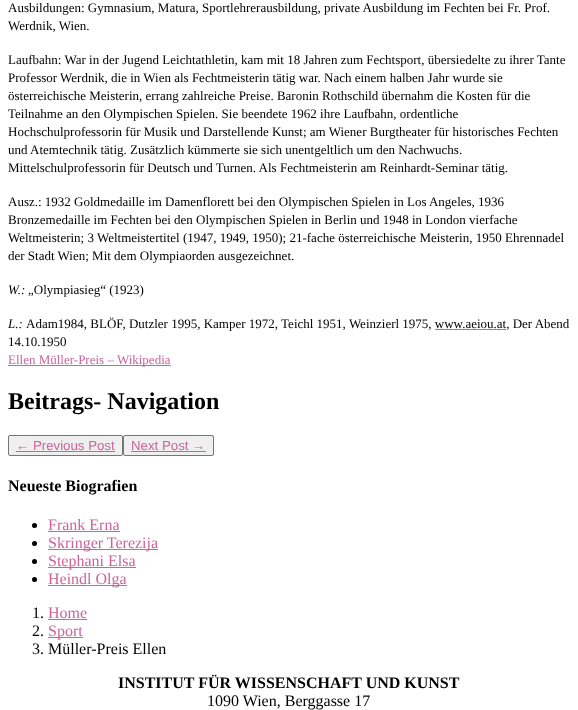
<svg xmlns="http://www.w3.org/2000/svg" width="578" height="710">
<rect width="100%" height="100%" fill="#fff"/>
<text x="8" y="12" style="font-family:Liberation Serif;font-size:13px;fill:#000">Ausbildungen: Gymnasium, Matura, Sportlehrerausbildung, private Ausbildung im Fechten bei Fr. Prof.</text>
<text x="8" y="30" style="font-family:Liberation Serif;font-size:13px;fill:#000">Werdnik, Wien.</text>
<text x="8" y="64" style="font-family:Liberation Serif;font-size:13px;fill:#000">Laufbahn: War in der Jugend Leichtathletin, kam mit 18 Jahren zum Fechtsport, übersiedelte zu ihrer Tante</text>
<text x="8" y="82" style="font-family:Liberation Serif;font-size:13px;fill:#000">Professor Werdnik, die in Wien als Fechtmeisterin tätig war. Nach einem halben Jahr wurde sie</text>
<text x="8" y="100" style="font-family:Liberation Serif;font-size:13px;fill:#000">österreichische Meisterin, errang zahlreiche Preise. Baronin Rothschild übernahm die Kosten für die</text>
<text x="8" y="118" style="font-family:Liberation Serif;font-size:13px;fill:#000">Teilnahme an den Olympischen Spielen. Sie beendete 1962 ihre Laufbahn, ordentliche</text>
<text x="8" y="136" style="font-family:Liberation Serif;font-size:13px;fill:#000">Hochschulprofessorin für Musik und Darstellende Kunst; am Wiener Burgtheater für historisches Fechten</text>
<text x="8" y="154" style="font-family:Liberation Serif;font-size:13px;fill:#000">und Atemtechnik tätig. Zusätzlich kümmerte sie sich unentgeltlich um den Nachwuchs.</text>
<text x="8" y="172" style="font-family:Liberation Serif;font-size:13px;fill:#000">Mittelschulprofessorin für Deutsch und Turnen. Als Fechtmeisterin am Reinhardt-Seminar tätig.</text>
<text x="8" y="206" style="font-family:Liberation Serif;font-size:13px;fill:#000">Ausz.: 1932 Goldmedaille im Damenflorett bei den Olympischen Spielen in Los Angeles, 1936</text>
<text x="8" y="224" style="font-family:Liberation Serif;font-size:13px;fill:#000">Bronzemedaille im Fechten bei den Olympischen Spielen in Berlin und 1948 in London vierfache</text>
<text x="8" y="242" style="font-family:Liberation Serif;font-size:13px;fill:#000">Weltmeisterin; 3 Weltmeistertitel (1947, 1949, 1950); 21-fache österreichische Meisterin, 1950 Ehrennadel</text>
<text x="8" y="260" style="font-family:Liberation Serif;font-size:13px;fill:#000">der Stadt Wien; Mit dem Olympiaorden ausgezeichnet.</text>
<text x="8" y="294" style="font-family:Liberation Serif;font-size:13px;font-style:italic;fill:#000">W.:</text>
<text x="28" y="294" style="font-family:Liberation Serif;font-size:13px;fill:#000">„Olympiasieg“ (1923)</text>
<text x="8" y="328" style="font-family:Liberation Serif;font-size:13px;font-style:italic;fill:#000">L.:</text>
<text x="26" y="328" style="font-family:Liberation Serif;font-size:13px;fill:#000">Adam1984, BLÖF, Dutzler 1995, Kamper 1972, Teichl 1951, Weinzierl 1975, www.aeiou.at, Der Abend</text>
<rect x="435" y="329" width="71" height="1" fill="#cc649c"/>
<text x="8" y="346" style="font-family:Liberation Serif;font-size:13px;fill:#000">14.10.1950</text>
<rect x="8" y="365" width="163" height="1" fill="#cc649c"/>
<text x="8" y="364" style="font-family:Liberation Serif;font-size:13px;fill:#cc649c">Ellen Müller-Preis – Wikipedia</text>
<text x="8" y="409" style="font-family:Liberation Serif;font-size:24px;font-weight:bold;fill:#000">Beitrags- Navigation</text>
<rect x="8.5" y="435.5" width="114" height="20" rx="1.5" fill="#efefef" stroke="#767676"/>
<text x="16" y="450" style="font-family:Liberation Sans;font-size:13.25px;fill:#cc649c">← Previous Post</text>
<rect x="16" y="451" width="99" height="1" fill="#cc649c"/>
<rect x="123.5" y="435.5" width="90" height="20" rx="1.5" fill="#efefef" stroke="#767676"/>
<text x="131" y="450" style="font-family:Liberation Sans;font-size:13.25px;fill:#cc649c">Next Post →</text>
<rect x="131" y="451" width="75" height="1" fill="#cc649c"/>
<text x="8" y="491" style="font-family:Liberation Serif;font-size:16px;font-weight:bold;fill:#000">Neueste Biografien</text>
<circle cx="34.5" cy="525.5" r="2.5" fill="#000"/>
<text x="48" y="530" style="font-family:Liberation Serif;font-size:16px;fill:#cc649c">Frank Erna</text>
<rect x="48" y="531" width="72" height="1" fill="#cc649c"/>
<circle cx="34.5" cy="543.5" r="2.5" fill="#000"/>
<rect x="48" y="549" width="110" height="1" fill="#cc649c"/>
<text x="48" y="548" style="font-family:Liberation Serif;font-size:16px;fill:#cc649c">Skringer Terezija</text>
<circle cx="34.5" cy="561.5" r="2.5" fill="#000"/>
<rect x="48" y="567" width="88" height="1" fill="#cc649c"/>
<text x="48" y="566" style="font-family:Liberation Serif;font-size:16px;fill:#cc649c">Stephani Elsa</text>
<circle cx="34.5" cy="579.5" r="2.5" fill="#000"/>
<rect x="48" y="585" width="79" height="1" fill="#cc649c"/>
<text x="48" y="584" style="font-family:Liberation Serif;font-size:16px;fill:#cc649c">Heindl Olga</text>
<text x="32" y="618" style="font-family:Liberation Serif;font-size:16px;fill:#000">1.</text>
<text x="48" y="618" style="font-family:Liberation Serif;font-size:16px;fill:#cc649c">Home</text>
<rect x="48" y="619" width="39" height="1" fill="#cc649c"/>
<text x="32" y="636" style="font-family:Liberation Serif;font-size:16px;fill:#000">2.</text>
<rect x="48" y="637" width="35" height="1" fill="#cc649c"/>
<text x="48" y="636" style="font-family:Liberation Serif;font-size:16px;fill:#cc649c">Sport</text>
<text x="32" y="654" style="font-family:Liberation Serif;font-size:16px;fill:#000">3. Müller-Preis Ellen</text>
<text x="118" y="688" style="font-family:Liberation Serif;font-size:16px;font-weight:bold;fill:#000">INSTITUT FÜR WISSENSCHAFT UND KUNST</text>
<text x="207" y="706" style="font-family:Liberation Serif;font-size:16px;fill:#000">1090 Wien, Berggasse 17</text>
</svg>
